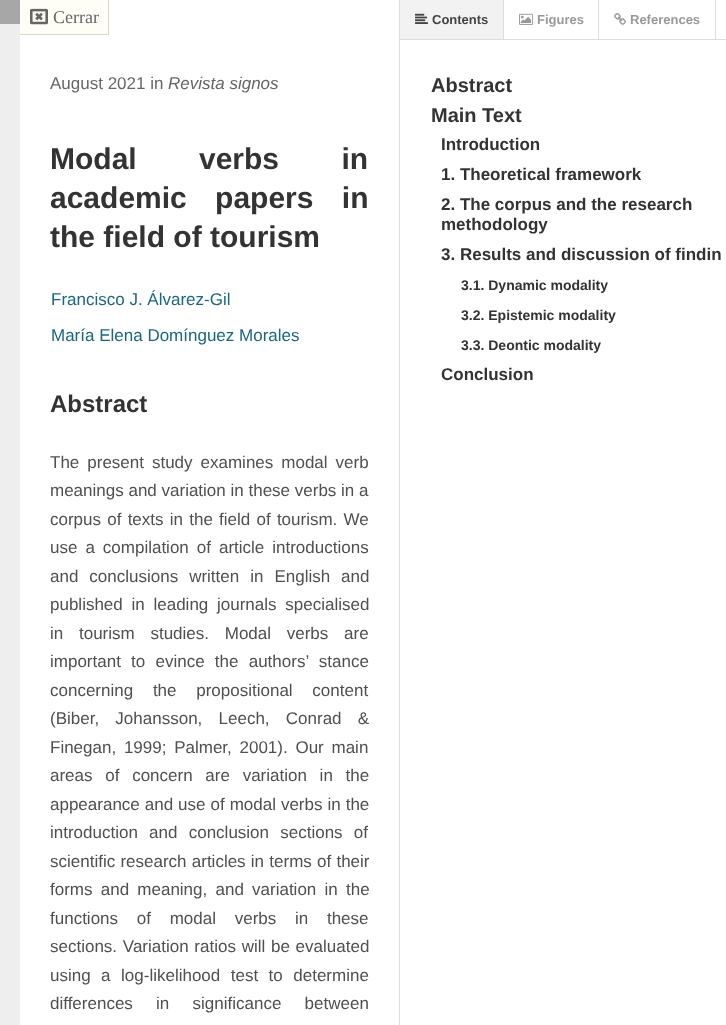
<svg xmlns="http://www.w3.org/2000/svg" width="726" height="1025">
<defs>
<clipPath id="clip1"><rect x="400" width="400" height="39"/></clipPath>
</defs>
<rect width="100%" height="100%" fill="#fff"/>
<rect x="20" width="88" height="34" fill="#fffef6"/>
<rect x="108" width="1" height="35" fill="#d8d9c1"/>
<rect x="20" y="34" width="89" height="1" fill="#d8d9c1"/>
<image x="30" y="8" width="18" height="17" href="media/1.png"/>
<text x="53" y="23" style="font-family:Liberation Serif;font-size:18px;fill:#666">Cerrar</text>
<rect x="399" width="1" height="1025" fill="#ddd"/>
<rect y="24" width="20" height="1001" fill="#eee"/>
<rect width="20" height="24" fill="#a7a7a7"/>
<text x="50" y="89" style="font-family:Liberation Sans;font-size:17px;fill:#666">August 2021 in</text>
<text x="168" y="89" style="font-family:Liberation Sans;font-size:17px;font-style:italic;fill:#666">Revista signos</text>
<text x="50" y="169" word-spacing="54" style="font-family:Liberation Sans;font-size:30px;font-weight:bold;fill:#333">Modal verbs in</text>
<text x="50" y="208" word-spacing="20" style="font-family:Liberation Sans;font-size:30px;font-weight:bold;fill:#333">academic papers in</text>
<text x="50" y="247" style="font-family:Liberation Sans;font-size:30px;font-weight:bold;fill:#333">the field of tourism</text>
<text x="51" y="305" style="font-family:Liberation Sans;font-size:17px;fill:#1b6685">Francisco J. Álvarez-Gil</text>
<text x="51" y="341" style="font-family:Liberation Sans;font-size:17px;fill:#1b6685">María Elena Domínguez Morales</text>
<text x="50" y="412" style="font-family:Liberation Sans;font-size:24px;font-weight:bold;fill:#333">Abstract</text>
<text x="50" y="468" word-spacing="3.25" style="font-family:Liberation Sans;font-size:17px;fill:#505050">The present study examines modal verb</text>
<text x="50" y="496" style="font-family:Liberation Sans;font-size:17px;fill:#505050">meanings and variation in these verbs in a</text>
<text x="50" y="525" word-spacing="1.5" style="font-family:Liberation Sans;font-size:17px;fill:#505050">corpus of texts in the field of tourism. We</text>
<text x="50" y="553" word-spacing="3.25" style="font-family:Liberation Sans;font-size:17px;fill:#505050">use a compilation of article introductions</text>
<text x="50" y="582" word-spacing="6.25" style="font-family:Liberation Sans;font-size:17px;fill:#505050">and conclusions written in English and</text>
<text x="50" y="610" word-spacing="4" style="font-family:Liberation Sans;font-size:17px;fill:#505050">published in leading journals specialised</text>
<text x="50" y="639" word-spacing="11" style="font-family:Liberation Sans;font-size:17px;fill:#505050">in tourism studies. Modal verbs are</text>
<text x="50" y="667" word-spacing="5.5" style="font-family:Liberation Sans;font-size:17px;fill:#505050">important to evince the authors’ stance</text>
<text x="50" y="696" word-spacing="15" style="font-family:Liberation Sans;font-size:17px;fill:#505050">concerning the propositional content</text>
<text x="50" y="724" word-spacing="11.5" style="font-family:Liberation Sans;font-size:17px;fill:#505050">(Biber, Johansson, Leech, Conrad &amp;</text>
<text x="50" y="753" word-spacing="3" style="font-family:Liberation Sans;font-size:17px;fill:#505050">Finegan, 1999; Palmer, 2001). Our main</text>
<text x="50" y="781" word-spacing="8" style="font-family:Liberation Sans;font-size:17px;fill:#505050">areas of concern are variation in the</text>
<text x="50" y="810" word-spacing="0.25" style="font-family:Liberation Sans;font-size:17px;fill:#505050">appearance and use of modal verbs in the</text>
<text x="50" y="838" word-spacing="6.5" style="font-family:Liberation Sans;font-size:17px;fill:#505050">introduction and conclusion sections of</text>
<text x="50" y="867" word-spacing="0.5" style="font-family:Liberation Sans;font-size:17px;fill:#505050">scientific research articles in terms of their</text>
<text x="50" y="895" word-spacing="3.5" style="font-family:Liberation Sans;font-size:17px;fill:#505050">forms and meaning, and variation in the</text>
<text x="50" y="924" word-spacing="14" style="font-family:Liberation Sans;font-size:17px;fill:#505050">functions of modal verbs in these</text>
<text x="50" y="952" word-spacing="1" style="font-family:Liberation Sans;font-size:17px;fill:#505050">sections. Variation ratios will be evaluated</text>
<text x="50" y="981" word-spacing="5.75" style="font-family:Liberation Sans;font-size:17px;fill:#505050">using a log-likelihood test to determine</text>
<text x="50" y="1009" word-spacing="18.5" style="font-family:Liberation Sans;font-size:17px;fill:#505050">differences in significance between</text>
<rect x="400" y="39" width="326" height="1" fill="#ddd"/>
<rect x="400" width="103" height="39" fill="#f2f2f2"/>
<g clip-path="url(#clip1)">
<path d="M504 0v43l-1-3v-40z" fill="#ddd"/>
</g>
<image x="415" y="13" width="13" height="11" href="media/2.png"/>
<text x="432" y="24" style="font-family:Liberation Sans;font-size:13px;font-weight:bold;fill:#444">Contents</text>
<rect x="598" width="1" height="39" fill="#ddd"/>
<image x="519" y="13" width="14" height="12" href="media/3.png"/>
<text x="537" y="24" style="font-family:Liberation Sans;font-size:13px;font-weight:bold;fill:#999">Figures</text>
<rect x="715" width="1" height="39" fill="#ddd"/>
<image x="614" y="13" width="12" height="12" href="media/4.png"/>
<text x="630" y="24" style="font-family:Liberation Sans;font-size:13px;font-weight:bold;fill:#999">References</text>
<text x="431" y="92" style="font-family:Liberation Sans;font-size:20px;font-weight:bold;fill:#333">Abstract</text>
<text x="431" y="122" style="font-family:Liberation Sans;font-size:20px;font-weight:bold;fill:#333">Main Text</text>
<text x="441" y="150" style="font-family:Liberation Sans;font-size:17px;font-weight:bold;fill:#333">Introduction</text>
<text x="441" y="180" style="font-family:Liberation Sans;font-size:17px;font-weight:bold;fill:#333">1. Theoretical framework</text>
<text x="441" y="210" style="font-family:Liberation Sans;font-size:17px;font-weight:bold;fill:#333">2. The corpus and the research</text>
<text x="441" y="230" style="font-family:Liberation Sans;font-size:17px;font-weight:bold;fill:#333">methodology</text>
<text x="441" y="260" style="font-family:Liberation Sans;font-size:17px;font-weight:bold;fill:#333">3. Results and discussion of findin</text>
<text x="461" y="290" style="font-family:Liberation Sans;font-size:14px;font-weight:bold;fill:#333">3.1. Dynamic modality</text>
<text x="461" y="320" style="font-family:Liberation Sans;font-size:14px;font-weight:bold;fill:#333">3.2. Epistemic modality</text>
<text x="461" y="350" style="font-family:Liberation Sans;font-size:14px;font-weight:bold;fill:#333">3.3. Deontic modality</text>
<text x="441" y="380" style="font-family:Liberation Sans;font-size:17px;font-weight:bold;fill:#333">Conclusion</text>
</svg>
